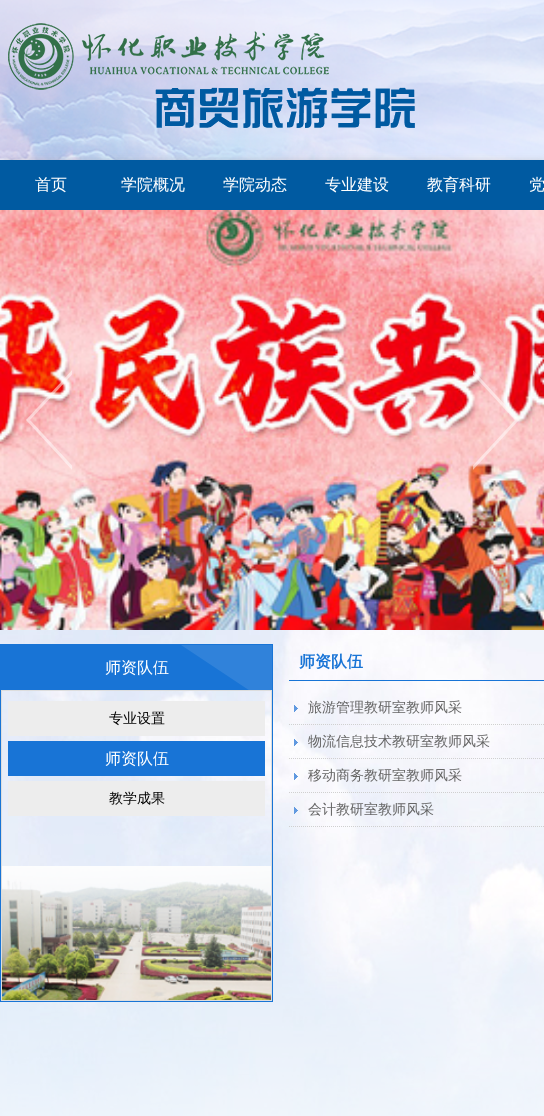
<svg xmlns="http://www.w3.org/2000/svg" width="544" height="1116">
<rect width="100%" height="100%" fill="#fff"/>
<image x="0" y="0" width="544" height="1116" href="media/1.png"/>
<image x="0" y="0" width="544" height="160" href="media/2.png"/>
<image x="8" y="23" width="407" height="105" href="media/3.png"/>
<rect x="3" y="163" width="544" height="50" fill="#adaeb0" filter="blur(4.5px)"/>
<rect y="160" width="544" height="50" fill="#005aa1"/>
<text x="35" y="190" style="font-family:WenQuanYi Zen Hei;font-size:16px;font-weight:500;fill:#fff">首页</text>
<text x="121" y="190" style="font-family:WenQuanYi Zen Hei;font-size:16px;font-weight:500;fill:#fff">学院概况</text>
<text x="223" y="190" style="font-family:WenQuanYi Zen Hei;font-size:16px;font-weight:500;fill:#fff">学院动态</text>
<text x="325" y="190" style="font-family:WenQuanYi Zen Hei;font-size:16px;font-weight:500;fill:#fff">专业建设</text>
<text x="427" y="190" style="font-family:WenQuanYi Zen Hei;font-size:16px;font-weight:500;fill:#fff">教育科研</text>
<text x="529" y="190" style="font-family:WenQuanYi Zen Hei;font-size:16px;font-weight:500;fill:#fff">党</text>
<image x="0" y="210" width="544" height="420" href="media/4.png"/>
<image x="26" y="370" width="46" height="100" href="media/5.png"/>
<image x="473" y="370" width="46" height="100" href="media/6.png"/>
<rect x="0.5" y="644.5" width="272" height="357" fill="none" stroke="#1874d6"/>
<image x="1" y="645" width="271" height="45" href="media/7.png"/>
<text x="105" y="673" style="font-family:WenQuanYi Zen Hei;font-size:16px;font-weight:500;fill:#fff">师资队伍</text>
<rect x="1.5" y="690.5" width="270" height="310" fill="none" stroke="#ddd"/>
<rect x="8" y="701" width="257" height="35" fill="#ededed"/>
<text x="109" y="723" style="font-family:WenQuanYi Zen Hei;font-size:14px;font-weight:500;fill:#000">专业设置</text>
<rect x="8" y="741" width="257" height="35" fill="#1874d6"/>
<text x="105" y="764" style="font-family:WenQuanYi Zen Hei;font-size:16px;font-weight:500;fill:#fff">师资队伍</text>
<rect x="8" y="781" width="257" height="35" fill="#ededed"/>
<text x="109" y="803" style="font-family:WenQuanYi Zen Hei;font-size:14px;font-weight:500;fill:#000">教学成果</text>
<image x="2" y="866" width="269" height="134" href="media/8.png"/>
<rect x="289" y="680" width="255" height="1" fill="#1874d6"/>
<text x="299" y="667" style="font-family:WenQuanYi Zen Hei;font-size:16px;font-weight:bold;fill:#1874d6">师资队伍</text>
<path d="M289 724.5h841" fill="none" stroke="#d0d0d0" stroke-dasharray="1 1"/>
<image x="294" y="705" width="4" height="7" href="media/9.png"/>
<text x="308" y="712" style="font-family:WenQuanYi Zen Hei;font-size:14px;font-weight:500;fill:#666">旅游管理教研室教师风采</text>
<path d="M289 758.5h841" fill="none" stroke="#d0d0d0" stroke-dasharray="1 1"/>
<image x="294" y="739" width="4" height="7" href="media/10.png"/>
<text x="308" y="746" style="font-family:WenQuanYi Zen Hei;font-size:14px;font-weight:500;fill:#666">物流信息技术教研室教师风采</text>
<path d="M289 792.5h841" fill="none" stroke="#d0d0d0" stroke-dasharray="1 1"/>
<image x="294" y="773" width="4" height="7" href="media/11.png"/>
<text x="308" y="780" style="font-family:WenQuanYi Zen Hei;font-size:14px;font-weight:500;fill:#666">移动商务教研室教师风采</text>
<path d="M289 826.5h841" fill="none" stroke="#d0d0d0" stroke-dasharray="1 1"/>
<image x="294" y="807" width="4" height="7" href="media/12.png"/>
<text x="308" y="814" style="font-family:WenQuanYi Zen Hei;font-size:14px;font-weight:500;fill:#666">会计教研室教师风采</text>
</svg>
